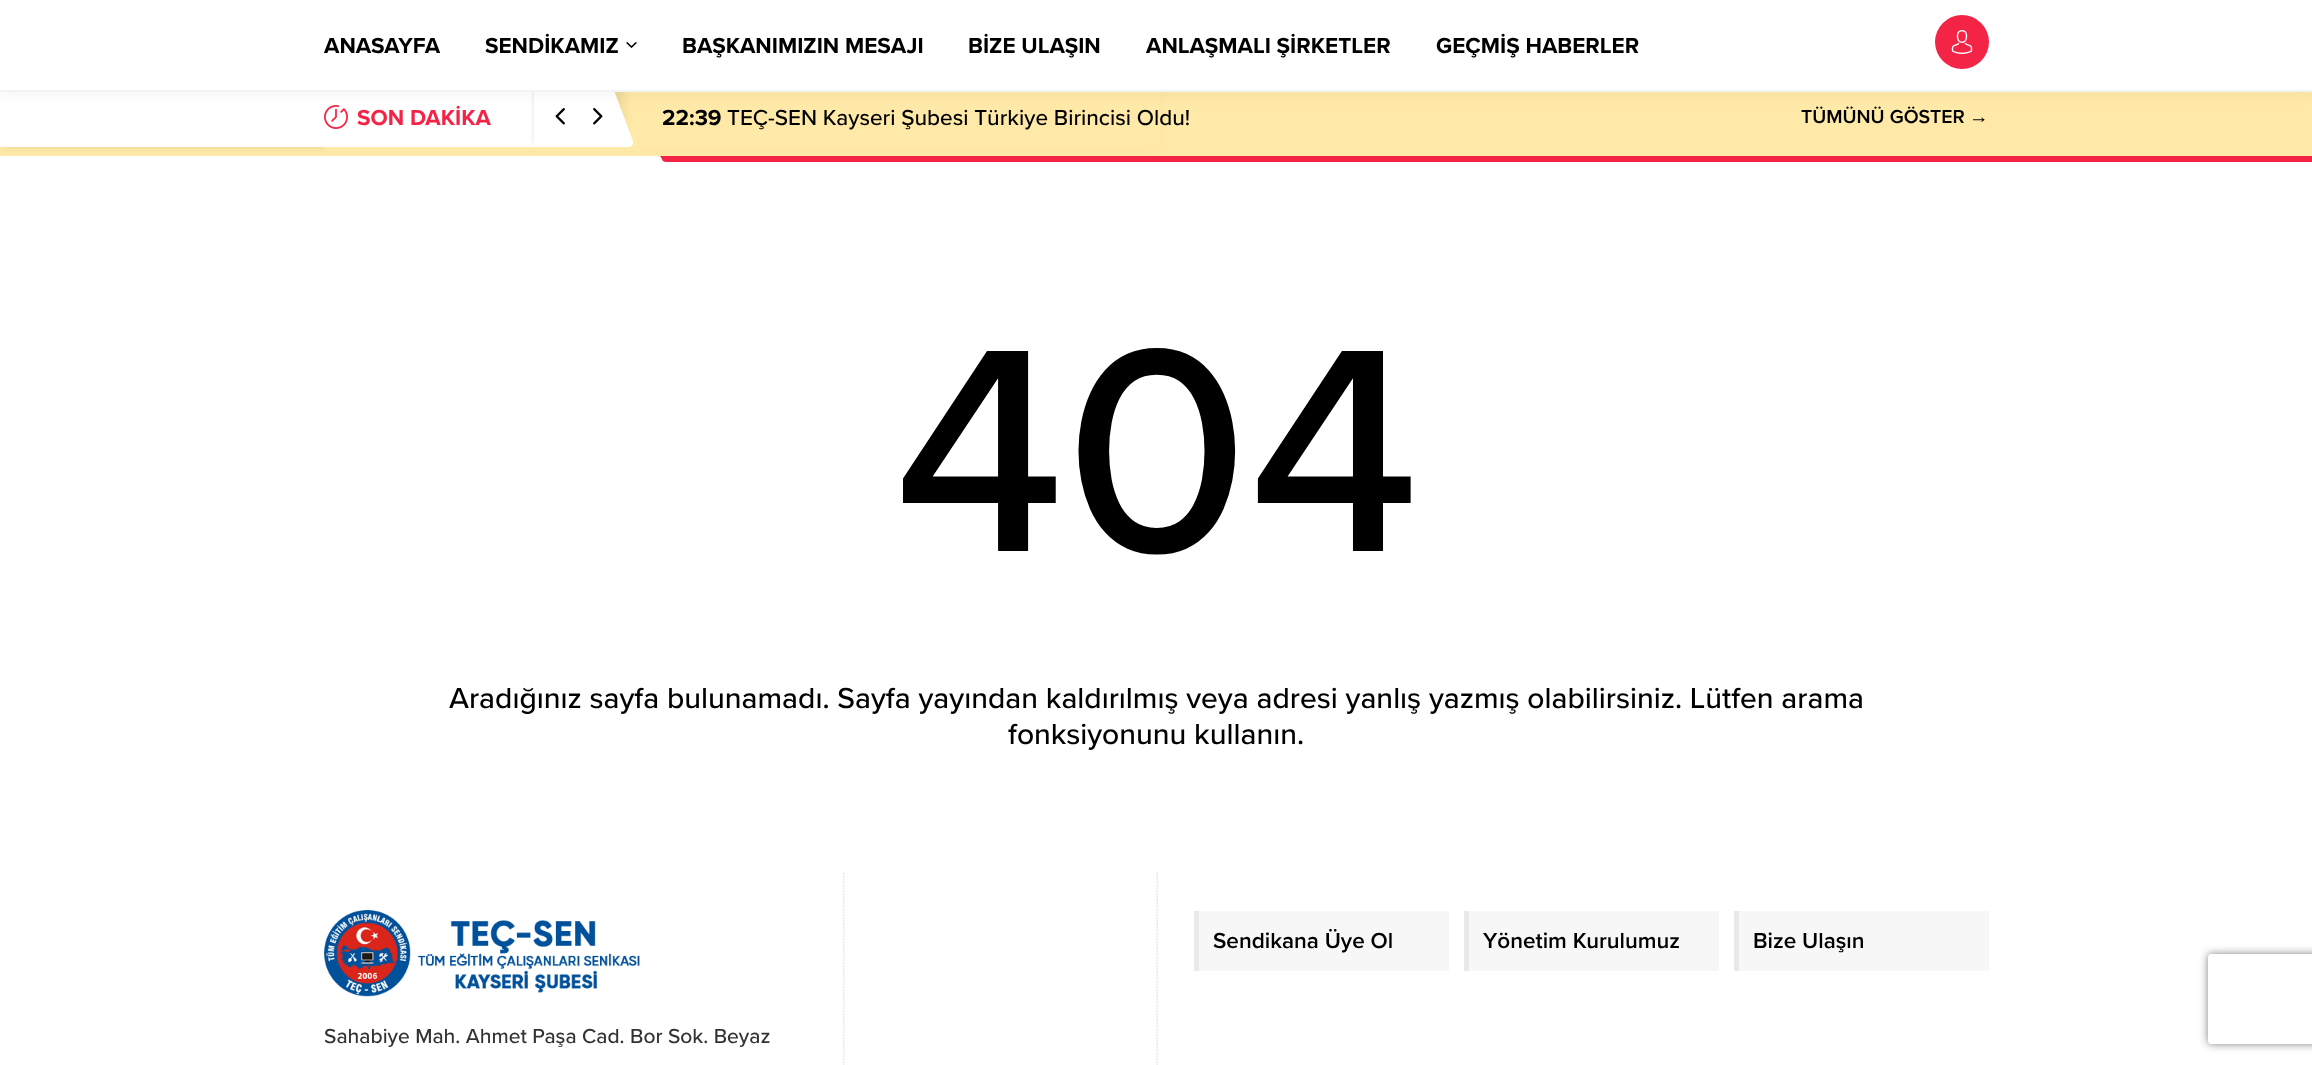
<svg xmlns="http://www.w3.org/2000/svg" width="2312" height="1065">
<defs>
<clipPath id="clip1"><rect x="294" y="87" width="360" height="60"/></clipPath>
<clipPath id="clip2"><rect x="294" y="87" width="360" height="60"/></clipPath>
<clipPath id="clip3"><rect x="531" y="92" width="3" height="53"/></clipPath>
<clipPath id="clip4"><path d="M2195 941h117v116h-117zm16 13h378c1.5 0 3 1.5 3 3v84c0 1.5-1.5 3-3 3h-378c-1.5 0-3-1.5-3-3v-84c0-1.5 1.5-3 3-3z" clip-rule="evenodd"/></clipPath>
</defs>
<rect width="100%" height="100%" fill="#fff"/>
<rect y="92" width="2312" height="64" fill="#ffe9a8"/>
<rect y="87" width="1157" height="60" fill="#00000012" filter="blur(4px)"/>
<rect y="92" width="294" height="55" fill="#fff"/>
<rect x="324" y="92" width="837" height="59" fill="#ffe9a8"/>
<g clip-path="url(#clip1)">
<rect x="264" y="87" width="360" height="60" rx="6" fill="#00000012" filter="blur(4px)"/>
</g>
<g clip-path="url(#clip2)">
<path d="M259 87h348c3 0 7 3 8 6l18 48c1 3-1 6-4 6h-348c-3 0-7-3-8-6l-18-48c-1-3 1-6 4-6z" fill="#fff"/>
</g>
<image x="324" y="105" width="24" height="24" href="media/3.png"/>
<g clip-path="url(#clip3)">
<rect x="534" y="90" width="75" height="54" fill="#0000001a" filter="blur(4px)"/>
</g>
<image x="555" y="108" width="10" height="17" href="media/4.png"/>
<image x="593" y="108" width="10" height="17" href="media/5.png"/>
<rect width="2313" height="92" fill="#0000000f" filter="blur(7.5px)"/>
<rect width="2312" height="90" fill="#fff"/>
<rect y="90" width="2312" height="2" fill="#f3f3f3"/>
<text x="324" y="53" style="font-family:Proxima Nova;font-size:22.5px;font-weight:bold;fill:#000">ANASAYFA</text>
<text x="485" y="53" style="font-family:Proxima Nova;font-size:22.5px;font-weight:bold;fill:#000">SENDİKAMIZ</text>
<image x="626" y="42" width="11" height="6" href="media/1.png"/>
<text x="682" y="53" style="font-family:Proxima Nova;font-size:22.5px;font-weight:bold;fill:#000">BAŞKANIMIZIN MESAJI</text>
<text x="968" y="53" style="font-family:Proxima Nova;font-size:22.5px;font-weight:bold;fill:#000">BİZE ULAŞIN</text>
<text x="1146" y="53" style="font-family:Proxima Nova;font-size:22.5px;font-weight:bold;fill:#000">ANLAŞMALI ŞİRKETLER</text>
<text x="1436" y="53" style="font-family:Proxima Nova;font-size:22.5px;font-weight:bold;fill:#000">GEÇMİŞ HABERLER</text>
<circle cx="1962" cy="42" r="27" fill="#f42447"/>
<image x="1951" y="30" width="22" height="24" href="media/2.png"/>
<text x="357" y="125" style="font-family:Proxima Nova;font-size:22.5px;font-weight:bold;fill:#f42447">SON DAKİKA</text>
<text x="662" y="125" style="font-family:Proxima Nova;font-size:22.5px;font-weight:bold;fill:#000">22:39</text>
<text x="727" y="125" style="font-family:Proxima Nova;font-size:22.5px;font-weight:500;fill:#000">TEÇ-SEN Kayseri Şubesi Türkiye Birincisi Oldu!</text>
<path d="M660 156h1132l2 6h-1128c-2 0-4-1-4-3z" fill="#f42447"/>
<text x="1801" y="123" style="font-family:Proxima Nova;font-size:19.5px;font-weight:600;fill:#000">TÜMÜNÜ GÖSTER</text>
<text x="1969" y="123" style="font-family:Liberation Sans;font-size:19.5px;font-weight:bold;fill:#000">→</text>
<rect x="1792" y="156" width="520" height="6" fill="#f42447"/>
<text x="894" y="551" style="font-family:Proxima Nova;font-size:300px;font-weight:500;fill:#000">404</text>
<text x="449" y="708" style="font-family:Proxima Nova;font-size:30px;font-weight:500;fill:#000">Aradığınız sayfa bulunamadı. Sayfa yayından kaldırılmış veya adresi yanlış yazmış olabilirsiniz. Lütfen arama</text>
<text x="1008" y="744" style="font-family:Proxima Nova;font-size:30px;font-weight:500;fill:#000">fonksiyonunu kullanın.</text>
<image x="843" y="872" width="315" height="193" href="media/6.png"/>
<rect x="1199" y="911" width="250" height="60" fill="#f7f7f7"/>
<rect x="1194" y="911" width="5" height="60" fill="#e9e9e9"/>
<text x="1213" y="948" style="font-family:Proxima Nova;font-size:22.5px;font-weight:600;fill:#000">Sendikana Üye Ol</text>
<rect x="1469" y="911" width="250" height="60" fill="#f7f7f7"/>
<rect x="1464" y="911" width="5" height="60" fill="#e9e9e9"/>
<text x="1483" y="948" style="font-family:Proxima Nova;font-size:22.5px;font-weight:600;fill:#000">Yönetim Kurulumuz</text>
<rect x="1739" y="911" width="250" height="60" fill="#f7f7f7"/>
<rect x="1734" y="911" width="5" height="60" fill="#e9e9e9"/>
<text x="1753" y="948" style="font-family:Proxima Nova;font-size:22.5px;font-weight:600;fill:#000">Bize Ulaşın</text>
<image x="324" y="910" width="316" height="87" href="media/7.png"/>
<text x="324" y="1043" style="font-family:Proxima Nova;font-size:21px;font-weight:500;fill:#333">Sahabiye Mah. Ahmet Paşa Cad. Bor Sok. Beyaz</text>
<g clip-path="url(#clip4)">
<rect x="2208" y="954" width="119" height="90" rx="3" fill="#808080" filter="blur(4px)"/>
</g>
</svg>
